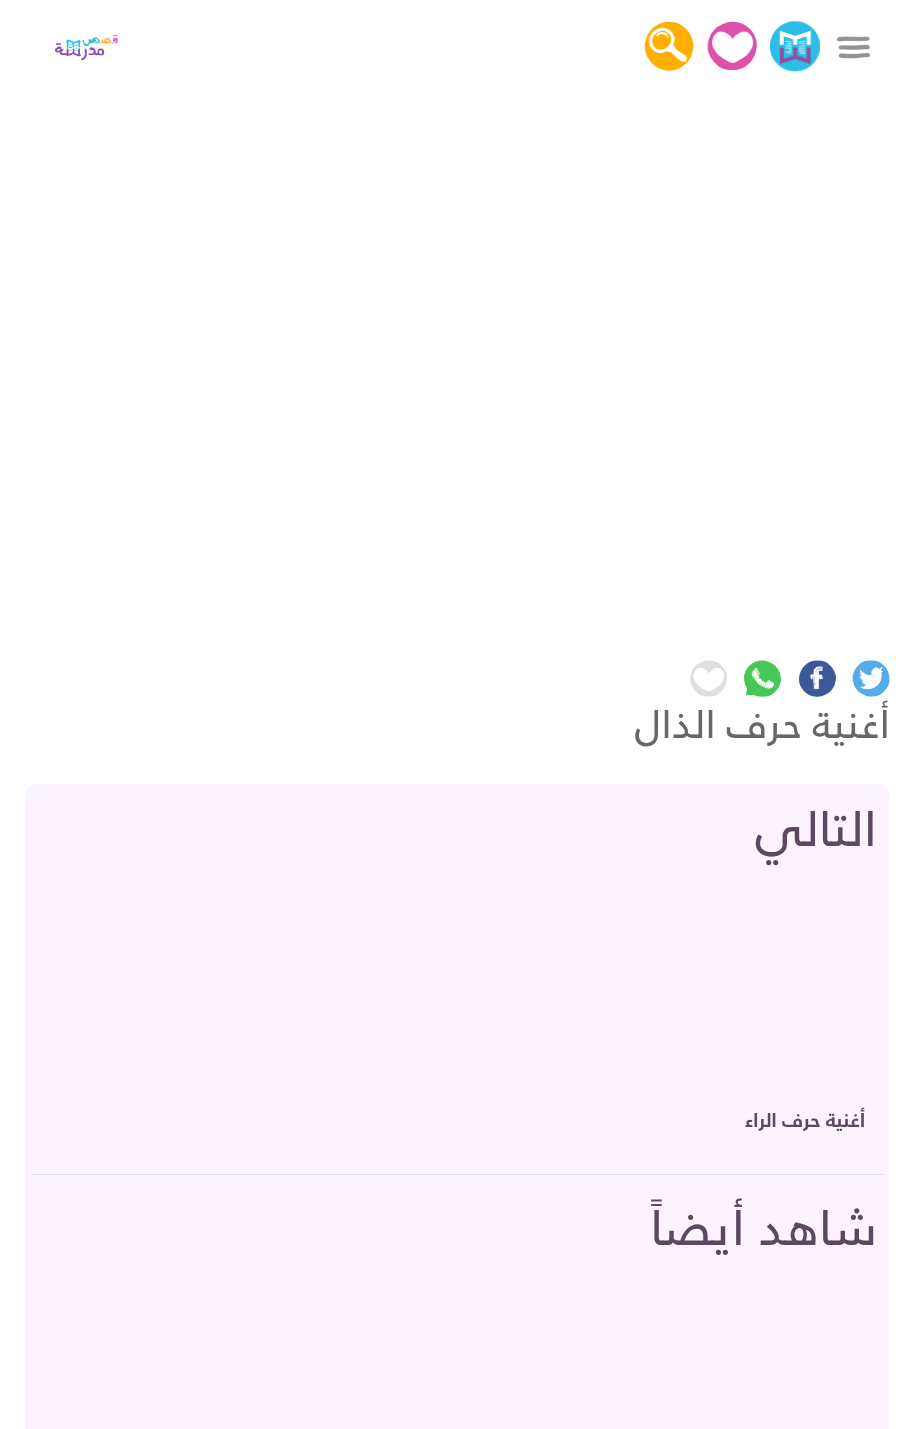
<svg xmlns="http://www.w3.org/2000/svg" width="915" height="1429">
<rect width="100%" height="100%" fill="#fff"/>
<image x="837" y="36" width="33" height="23" href="media/1.png"/>
<image x="770" y="21" width="50" height="51" href="media/2.png"/>
<image x="707" y="21" width="50" height="50" href="media/3.png"/>
<image x="644" y="21" width="50" height="50" href="media/4.png"/>
<image x="55" y="35" width="63" height="25" href="media/5.png"/>
<image x="852" y="660" width="38" height="37" href="media/6.png"/>
<image x="798" y="660" width="39" height="37" href="media/7.png"/>
<image x="743" y="660" width="39" height="37" href="media/8.png"/>
<image x="690" y="660" width="37" height="37" href="media/9.png"/>
<text x="890" y="738" style="font-family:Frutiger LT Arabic;font-size:40px;direction:rtl;fill:#676768">أغنية حرف الذال</text>
<rect x="25" y="784" width="865" height="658" rx="13" fill="#fbf4ff"/>
<text x="877" y="846" style="font-family:Frutiger LT Arabic;font-size:50px;direction:rtl;fill:#5d4863">التالي</text>
<text x="865" y="1127" style="font-family:Frutiger LT Arabic;font-size:20px;font-weight:bold;direction:rtl;fill:#5d4863">أغنية حرف الراء</text>
<rect x="31" y="1174" width="853" height="1" fill="#e2dce6"/>
<text x="877" y="1245" style="font-family:Frutiger LT Arabic;font-size:50px;direction:rtl;fill:#5d4863">شاهد أيضاً</text>
</svg>
